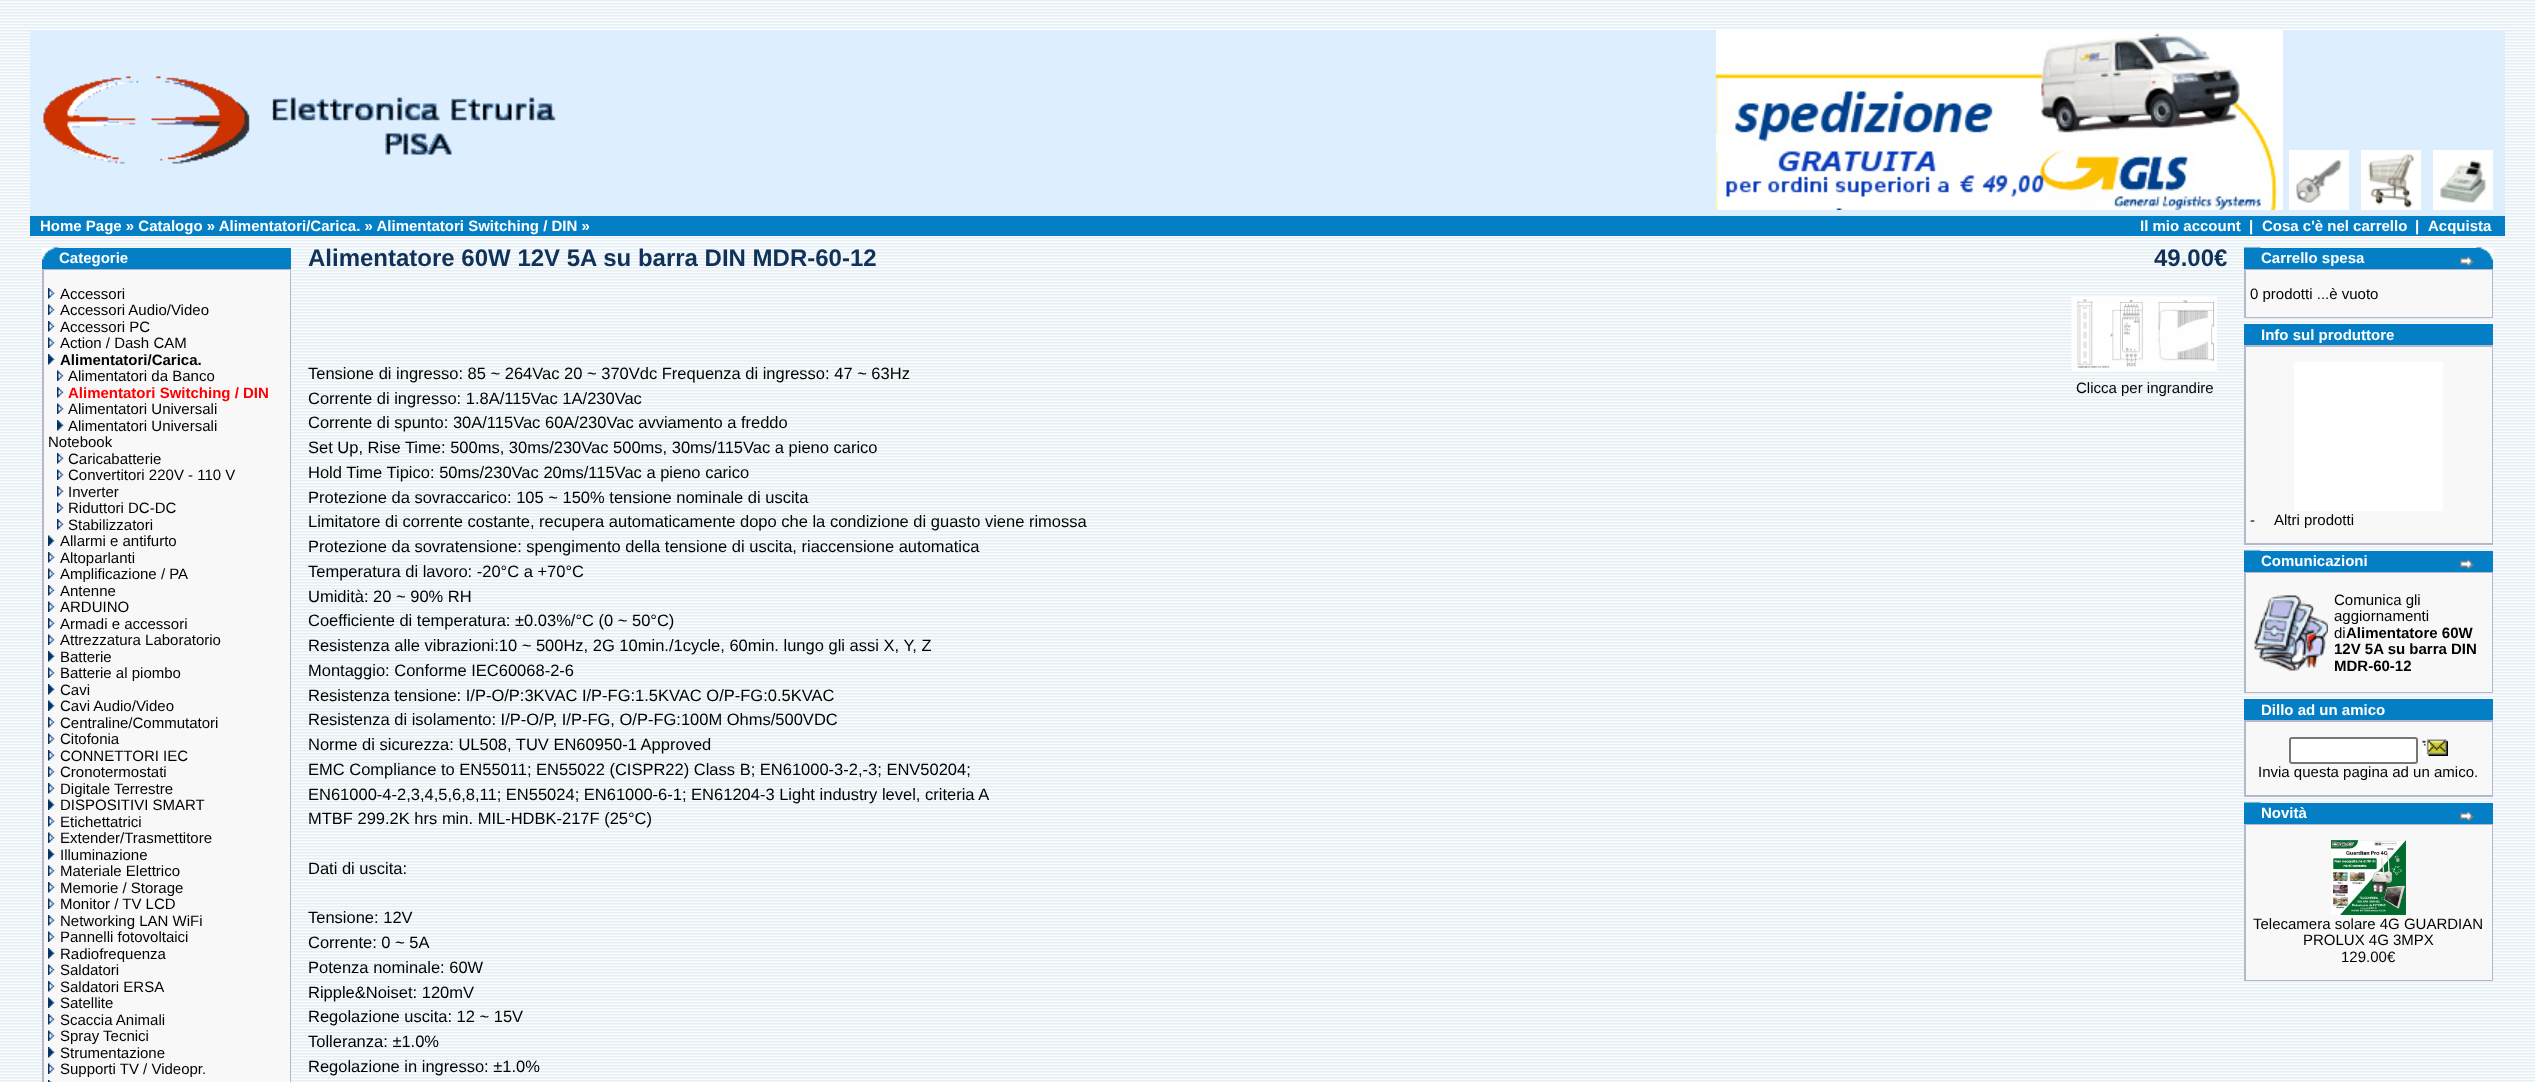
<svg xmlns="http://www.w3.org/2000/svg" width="2535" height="1082">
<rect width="100%" height="100%" fill="#fff"/>
<image x="0" y="0" width="2535" height="1082" href="media/1.png"/>
<rect x="30" y="30" width="2475" height="186" fill="#def"/>
<image x="43" y="76" width="513" height="88" href="media/2.png"/>
<image x="1716" y="30" width="567" height="180" href="media/3.png"/>
<image x="2289" y="150" width="60" height="60" href="media/4.png"/>
<image x="2361" y="150" width="60" height="60" href="media/5.png"/>
<image x="2433" y="150" width="60" height="60" href="media/6.png"/>
<rect x="30" y="216" width="2475" height="20" fill="#047ec4"/>
<text x="40" y="231" style="font-family:Liberation Sans;font-size:15px;font-weight:bold;fill:#fff">Home Page » Catalogo » Alimentatori/Carica. » Alimentatori Switching / DIN »</text>
<text x="2140" y="231" style="font-family:Liberation Sans;font-size:15px;font-weight:bold;fill:#fff">Il mio account</text>
<text x="2249" y="231" style="font-family:Liberation Sans;font-size:15px;font-weight:bold;fill:#fff">|</text>
<text x="2262" y="231" style="font-family:Liberation Sans;font-size:15px;font-weight:bold;fill:#fff">Cosa c'è nel carrello</text>
<text x="2415" y="231" style="font-family:Liberation Sans;font-size:15px;font-weight:bold;fill:#fff">|</text>
<text x="2428" y="231" style="font-family:Liberation Sans;font-size:15px;font-weight:bold;fill:#fff">Acquista</text>
<rect x="42" y="248" width="249" height="21" fill="#047ec4"/>
<image x="42" y="247" width="17" height="13" href="media/7.png"/>
<text x="59" y="263" style="font-family:Liberation Sans;font-size:15px;font-weight:bold;fill:#fff">Categorie</text>
<rect x="42" y="269" width="249" height="813" fill="#b6b7cb"/>
<rect x="44" y="270" width="246" height="812" fill="#f8f8f9"/>
<image x="48" y="288" width="7" height="11" href="media/8.png"/>
<text x="60" y="299" style="font-family:Liberation Sans;font-size:15px;fill:#000">Accessori</text>
<image x="48" y="304" width="7" height="11" href="media/9.png"/>
<text x="60" y="315" style="font-family:Liberation Sans;font-size:15px;fill:#000">Accessori Audio/Video</text>
<image x="48" y="321" width="7" height="11" href="media/8.png"/>
<text x="60" y="332" style="font-family:Liberation Sans;font-size:15px;fill:#000">Accessori PC</text>
<image x="48" y="337" width="7" height="11" href="media/9.png"/>
<text x="60" y="348" style="font-family:Liberation Sans;font-size:15px;fill:#000">Action / Dash CAM</text>
<image x="48" y="354" width="7" height="11" href="media/10.png"/>
<text x="60" y="365" style="font-family:Liberation Sans;font-size:15px;font-weight:bold;fill:#000">Alimentatori/Carica.</text>
<image x="57" y="370" width="7" height="11" href="media/9.png"/>
<text x="68" y="381" style="font-family:Liberation Sans;font-size:15px;fill:#000">Alimentatori da Banco</text>
<image x="57" y="387" width="7" height="11" href="media/8.png"/>
<text x="68" y="398" style="font-family:Liberation Sans;font-size:15px;font-weight:bold;fill:#f00">Alimentatori Switching / DIN</text>
<image x="57" y="403" width="7" height="11" href="media/9.png"/>
<text x="68" y="414" style="font-family:Liberation Sans;font-size:15px;fill:#000">Alimentatori Universali</text>
<image x="57" y="420" width="7" height="11" href="media/10.png"/>
<text x="68" y="431" style="font-family:Liberation Sans;font-size:15px;fill:#000">Alimentatori Universali</text>
<text x="48" y="447" style="font-family:Liberation Sans;font-size:15px;fill:#000">Notebook</text>
<image x="57" y="453" width="7" height="11" href="media/8.png"/>
<text x="68" y="464" style="font-family:Liberation Sans;font-size:15px;fill:#000">Caricabatterie</text>
<image x="57" y="469" width="7" height="11" href="media/9.png"/>
<text x="68" y="480" style="font-family:Liberation Sans;font-size:15px;fill:#000">Convertitori 220V - 110 V</text>
<image x="57" y="486" width="7" height="11" href="media/8.png"/>
<text x="68" y="497" style="font-family:Liberation Sans;font-size:15px;fill:#000">Inverter</text>
<image x="57" y="502" width="7" height="11" href="media/9.png"/>
<text x="68" y="513" style="font-family:Liberation Sans;font-size:15px;fill:#000">Riduttori DC-DC</text>
<image x="57" y="519" width="7" height="11" href="media/8.png"/>
<text x="68" y="530" style="font-family:Liberation Sans;font-size:15px;fill:#000">Stabilizzatori</text>
<image x="48" y="535" width="7" height="11" href="media/11.png"/>
<text x="60" y="546" style="font-family:Liberation Sans;font-size:15px;fill:#000">Allarmi e antifurto</text>
<image x="48" y="552" width="7" height="11" href="media/8.png"/>
<text x="60" y="563" style="font-family:Liberation Sans;font-size:15px;fill:#000">Altoparlanti</text>
<image x="48" y="568" width="7" height="11" href="media/9.png"/>
<text x="60" y="579" style="font-family:Liberation Sans;font-size:15px;fill:#000">Amplificazione / PA</text>
<image x="48" y="585" width="7" height="11" href="media/8.png"/>
<text x="60" y="596" style="font-family:Liberation Sans;font-size:15px;fill:#000">Antenne</text>
<image x="48" y="601" width="7" height="11" href="media/9.png"/>
<text x="60" y="612" style="font-family:Liberation Sans;font-size:15px;fill:#000">ARDUINO</text>
<image x="48" y="618" width="7" height="11" href="media/8.png"/>
<text x="60" y="629" style="font-family:Liberation Sans;font-size:15px;fill:#000">Armadi e accessori</text>
<image x="48" y="634" width="7" height="11" href="media/9.png"/>
<text x="60" y="645" style="font-family:Liberation Sans;font-size:15px;fill:#000">Attrezzatura Laboratorio</text>
<image x="48" y="651" width="7" height="11" href="media/10.png"/>
<text x="60" y="662" style="font-family:Liberation Sans;font-size:15px;fill:#000">Batterie</text>
<image x="48" y="667" width="7" height="11" href="media/9.png"/>
<text x="60" y="678" style="font-family:Liberation Sans;font-size:15px;fill:#000">Batterie al piombo</text>
<image x="48" y="684" width="7" height="11" href="media/10.png"/>
<text x="60" y="695" style="font-family:Liberation Sans;font-size:15px;fill:#000">Cavi</text>
<image x="48" y="700" width="7" height="11" href="media/11.png"/>
<text x="60" y="711" style="font-family:Liberation Sans;font-size:15px;fill:#000">Cavi Audio/Video</text>
<image x="48" y="717" width="7" height="11" href="media/8.png"/>
<text x="60" y="728" style="font-family:Liberation Sans;font-size:15px;fill:#000">Centraline/Commutatori</text>
<image x="48" y="733" width="7" height="11" href="media/9.png"/>
<text x="60" y="744" style="font-family:Liberation Sans;font-size:15px;fill:#000">Citofonia</text>
<image x="48" y="750" width="7" height="11" href="media/8.png"/>
<text x="60" y="761" style="font-family:Liberation Sans;font-size:15px;fill:#000">CONNETTORI IEC</text>
<image x="48" y="766" width="7" height="11" href="media/9.png"/>
<text x="60" y="777" style="font-family:Liberation Sans;font-size:15px;fill:#000">Cronotermostati</text>
<image x="48" y="783" width="7" height="11" href="media/8.png"/>
<text x="60" y="794" style="font-family:Liberation Sans;font-size:15px;fill:#000">Digitale Terrestre</text>
<image x="48" y="799" width="7" height="11" href="media/11.png"/>
<text x="60" y="810" style="font-family:Liberation Sans;font-size:15px;fill:#000">DISPOSITIVI SMART</text>
<image x="48" y="816" width="7" height="11" href="media/8.png"/>
<text x="60" y="827" style="font-family:Liberation Sans;font-size:15px;fill:#000">Etichettatrici</text>
<image x="48" y="832" width="7" height="11" href="media/9.png"/>
<text x="60" y="843" style="font-family:Liberation Sans;font-size:15px;fill:#000">Extender/Trasmettitore</text>
<image x="48" y="849" width="7" height="11" href="media/10.png"/>
<text x="60" y="860" style="font-family:Liberation Sans;font-size:15px;fill:#000">Illuminazione</text>
<image x="48" y="865" width="7" height="11" href="media/9.png"/>
<text x="60" y="876" style="font-family:Liberation Sans;font-size:15px;fill:#000">Materiale Elettrico</text>
<image x="48" y="882" width="7" height="11" href="media/8.png"/>
<text x="60" y="893" style="font-family:Liberation Sans;font-size:15px;fill:#000">Memorie / Storage</text>
<image x="48" y="898" width="7" height="11" href="media/9.png"/>
<text x="60" y="909" style="font-family:Liberation Sans;font-size:15px;fill:#000">Monitor / TV LCD</text>
<image x="48" y="915" width="7" height="11" href="media/8.png"/>
<text x="60" y="926" style="font-family:Liberation Sans;font-size:15px;fill:#000">Networking LAN WiFi</text>
<image x="48" y="931" width="7" height="11" href="media/9.png"/>
<text x="60" y="942" style="font-family:Liberation Sans;font-size:15px;fill:#000">Pannelli fotovoltaici</text>
<image x="48" y="948" width="7" height="11" href="media/10.png"/>
<text x="60" y="959" style="font-family:Liberation Sans;font-size:15px;fill:#000">Radiofrequenza</text>
<image x="48" y="964" width="7" height="11" href="media/9.png"/>
<text x="60" y="975" style="font-family:Liberation Sans;font-size:15px;fill:#000">Saldatori</text>
<image x="48" y="981" width="7" height="11" href="media/8.png"/>
<text x="60" y="992" style="font-family:Liberation Sans;font-size:15px;fill:#000">Saldatori ERSA</text>
<image x="48" y="997" width="7" height="11" href="media/11.png"/>
<text x="60" y="1008" style="font-family:Liberation Sans;font-size:15px;fill:#000">Satellite</text>
<image x="48" y="1014" width="7" height="11" href="media/8.png"/>
<text x="60" y="1025" style="font-family:Liberation Sans;font-size:15px;fill:#000">Scaccia Animali</text>
<image x="48" y="1030" width="7" height="11" href="media/9.png"/>
<text x="60" y="1041" style="font-family:Liberation Sans;font-size:15px;fill:#000">Spray Tecnici</text>
<image x="48" y="1047" width="7" height="11" href="media/10.png"/>
<text x="60" y="1058" style="font-family:Liberation Sans;font-size:15px;fill:#000">Strumentazione</text>
<image x="48" y="1063" width="7" height="11" href="media/9.png"/>
<text x="60" y="1074" style="font-family:Liberation Sans;font-size:15px;fill:#000">Supporti TV / Videopr.</text>
<image x="48" y="1080" width="4" height="2" href="media/12.png"/>
<text x="308" y="266" style="font-family:Liberation Sans;font-size:24px;font-weight:bold;fill:#0e3259">Alimentatore 60W 12V 5A su barra DIN MDR-60-12</text>
<text x="2154" y="266" style="font-family:Liberation Sans;font-size:24px;font-weight:bold;fill:#0e3259">49.00€</text>
<text x="308" y="379" style="font-family:Liberation Sans;font-size:16.5px;fill:#000">Tensione di ingresso: 85 ~ 264Vac 20 ~ 370Vdc Frequenza di ingresso: 47 ~ 63Hz</text>
<text x="308" y="404" style="font-family:Liberation Sans;font-size:16.5px;fill:#000">Corrente di ingresso: 1.8A/115Vac 1A/230Vac</text>
<text x="308" y="428" style="font-family:Liberation Sans;font-size:16.5px;fill:#000">Corrente di spunto: 30A/115Vac 60A/230Vac avviamento a freddo</text>
<text x="308" y="453" style="font-family:Liberation Sans;font-size:16.5px;fill:#000">Set Up, Rise Time: 500ms, 30ms/230Vac 500ms, 30ms/115Vac a pieno carico</text>
<text x="308" y="478" style="font-family:Liberation Sans;font-size:16.5px;fill:#000">Hold Time Tipico: 50ms/230Vac 20ms/115Vac a pieno carico</text>
<text x="308" y="503" style="font-family:Liberation Sans;font-size:16.5px;fill:#000">Protezione da sovraccarico: 105 ~ 150% tensione nominale di uscita</text>
<text x="308" y="527" style="font-family:Liberation Sans;font-size:16.5px;fill:#000">Limitatore di corrente costante, recupera automaticamente dopo che la condizione di guasto viene rimossa</text>
<text x="308" y="552" style="font-family:Liberation Sans;font-size:16.5px;fill:#000">Protezione da sovratensione: spengimento della tensione di uscita, riaccensione automatica</text>
<text x="308" y="577" style="font-family:Liberation Sans;font-size:16.5px;fill:#000">Temperatura di lavoro: -20°C a +70°C</text>
<text x="308" y="602" style="font-family:Liberation Sans;font-size:16.5px;fill:#000">Umidità: 20 ~ 90% RH</text>
<text x="308" y="626" style="font-family:Liberation Sans;font-size:16.5px;fill:#000">Coefficiente di temperatura: ±0.03%/°C (0 ~ 50°C)</text>
<text x="308" y="651" style="font-family:Liberation Sans;font-size:16.5px;fill:#000">Resistenza alle vibrazioni:10 ~ 500Hz, 2G 10min./1cycle, 60min. lungo gli assi X, Y, Z</text>
<text x="308" y="676" style="font-family:Liberation Sans;font-size:16.5px;fill:#000">Montaggio: Conforme IEC60068-2-6</text>
<text x="308" y="701" style="font-family:Liberation Sans;font-size:16.5px;fill:#000">Resistenza tensione: I/P-O/P:3KVAC I/P-FG:1.5KVAC O/P-FG:0.5KVAC</text>
<text x="308" y="725" style="font-family:Liberation Sans;font-size:16.5px;fill:#000">Resistenza di isolamento: I/P-O/P, I/P-FG, O/P-FG:100M Ohms/500VDC</text>
<text x="308" y="750" style="font-family:Liberation Sans;font-size:16.5px;fill:#000">Norme di sicurezza: UL508, TUV EN60950-1 Approved</text>
<text x="308" y="775" style="font-family:Liberation Sans;font-size:16.5px;fill:#000">EMC Compliance to EN55011; EN55022 (CISPR22) Class B; EN61000-3-2,-3; ENV50204;</text>
<text x="308" y="800" style="font-family:Liberation Sans;font-size:16.5px;fill:#000">EN61000-4-2,3,4,5,6,8,11; EN55024; EN61000-6-1; EN61204-3 Light industry level, criteria A</text>
<text x="308" y="824" style="font-family:Liberation Sans;font-size:16.5px;fill:#000">MTBF 299.2K hrs min. MIL-HDBK-217F (25°C)</text>
<text x="308" y="874" style="font-family:Liberation Sans;font-size:16.5px;fill:#000">Dati di uscita:</text>
<text x="308" y="923" style="font-family:Liberation Sans;font-size:16.5px;fill:#000">Tensione: 12V</text>
<text x="308" y="948" style="font-family:Liberation Sans;font-size:16.5px;fill:#000">Corrente: 0 ~ 5A</text>
<text x="308" y="973" style="font-family:Liberation Sans;font-size:16.5px;fill:#000">Potenza nominale: 60W</text>
<text x="308" y="998" style="font-family:Liberation Sans;font-size:16.5px;fill:#000">Ripple&amp;Noiset: 120mV</text>
<text x="308" y="1022" style="font-family:Liberation Sans;font-size:16.5px;fill:#000">Regolazione uscita: 12 ~ 15V</text>
<text x="308" y="1047" style="font-family:Liberation Sans;font-size:16.5px;fill:#000">Tolleranza: ±1.0%</text>
<text x="308" y="1072" style="font-family:Liberation Sans;font-size:16.5px;fill:#000">Regolazione in ingresso: ±1.0%</text>
<image x="2071" y="297" width="146" height="74" href="media/13.png"/>
<text x="2076" y="393" style="font-family:Liberation Sans;font-size:15px;fill:#000">Clicca per ingrandire</text>
<rect x="2244" y="248" width="249" height="21" fill="#047ec4"/>
<image x="2244" y="247" width="17" height="1" href="media/14.png"/>
<text x="2261" y="263" style="font-family:Liberation Sans;font-size:15px;font-weight:bold;fill:#fff">Carrello spesa</text>
<image x="2476" y="247" width="17" height="13" href="media/15.png"/>
<image x="2459" y="256" width="15" height="10" href="media/16.png"/>
<rect x="2244" y="269" width="249" height="49" fill="#b6b7cb"/>
<rect x="2246" y="270" width="246" height="47" fill="#f8f8f9"/>
<text x="2250" y="299" style="font-family:Liberation Sans;font-size:15px;fill:#000">0 prodotti ...è vuoto</text>
<rect x="2244" y="324" width="249" height="21" fill="#047ec4"/>
<text x="2261" y="340" style="font-family:Liberation Sans;font-size:15px;font-weight:bold;fill:#fff">Info sul produttore</text>
<rect x="2244" y="345" width="249" height="200" fill="#b6b7cb"/>
<rect x="2246" y="347" width="246" height="196" fill="#f8f8f9"/>
<rect x="2294" y="362" width="149" height="149" fill="#fff"/>
<text x="2250" y="525" style="font-family:Liberation Sans;font-size:15px;fill:#000">-</text>
<text x="2274" y="525" style="font-family:Liberation Sans;font-size:15px;fill:#000">Altri prodotti</text>
<rect x="2244" y="551" width="249" height="21" fill="#047ec4"/>
<image x="2244" y="550" width="17" height="1" href="media/14.png"/>
<text x="2261" y="566" style="font-family:Liberation Sans;font-size:15px;font-weight:bold;fill:#fff">Comunicazioni</text>
<image x="2459" y="559" width="15" height="10" href="media/16.png"/>
<rect x="2244" y="572" width="249" height="121" fill="#b6b7cb"/>
<rect x="2246" y="573" width="246" height="119" fill="#f8f8f9"/>
<image x="2254" y="595" width="74" height="76" href="media/17.png"/>
<text x="2334" y="605" style="font-family:Liberation Sans;font-size:15px;fill:#000">Comunica gli</text>
<text x="2334" y="621" style="font-family:Liberation Sans;font-size:15px;fill:#000">aggiornamenti</text>
<text x="2334" y="638" style="font-family:Liberation Sans;font-size:15px;fill:#000">di</text>
<text x="2346" y="638" style="font-family:Liberation Sans;font-size:15px;font-weight:bold;fill:#000">Alimentatore 60W</text>
<text x="2334" y="654" style="font-family:Liberation Sans;font-size:15px;font-weight:bold;fill:#000">12V 5A su barra DIN</text>
<text x="2334" y="671" style="font-family:Liberation Sans;font-size:15px;font-weight:bold;fill:#000">MDR-60-12</text>
<rect x="2244" y="699" width="249" height="21" fill="#047ec4"/>
<text x="2261" y="715" style="font-family:Liberation Sans;font-size:15px;font-weight:bold;fill:#fff">Dillo ad un amico</text>
<rect x="2244" y="720" width="249" height="77" fill="#b6b7cb"/>
<rect x="2246" y="722" width="246" height="73" fill="#f8f8f9"/>
<rect x="2290" y="738" width="127" height="25" rx="2" fill="#fff" stroke="#767676" stroke-width="2"/>
<image x="2422" y="739" width="26" height="17" href="media/18.png"/>
<text x="2258" y="777" style="font-family:Liberation Sans;font-size:15px;fill:#000">Invia questa pagina ad un amico.</text>
<rect x="2244" y="803" width="249" height="21" fill="#047ec4"/>
<image x="2244" y="802" width="17" height="1" href="media/14.png"/>
<text x="2261" y="818" style="font-family:Liberation Sans;font-size:15px;font-weight:bold;fill:#fff">Novità</text>
<image x="2459" y="811" width="15" height="10" href="media/16.png"/>
<rect x="2244" y="824" width="249" height="157" fill="#b6b7cb"/>
<rect x="2246" y="825" width="246" height="155" fill="#f8f8f9"/>
<image x="2331" y="840" width="75" height="75" href="media/19.png"/>
<text x="2253" y="929" style="font-family:Liberation Sans;font-size:15px;fill:#000">Telecamera solare 4G GUARDIAN</text>
<text x="2303" y="945" style="font-family:Liberation Sans;font-size:15px;fill:#000">PROLUX 4G 3MPX</text>
<text x="2341" y="962" style="font-family:Liberation Sans;font-size:15px;fill:#000">129.00€</text>
</svg>
